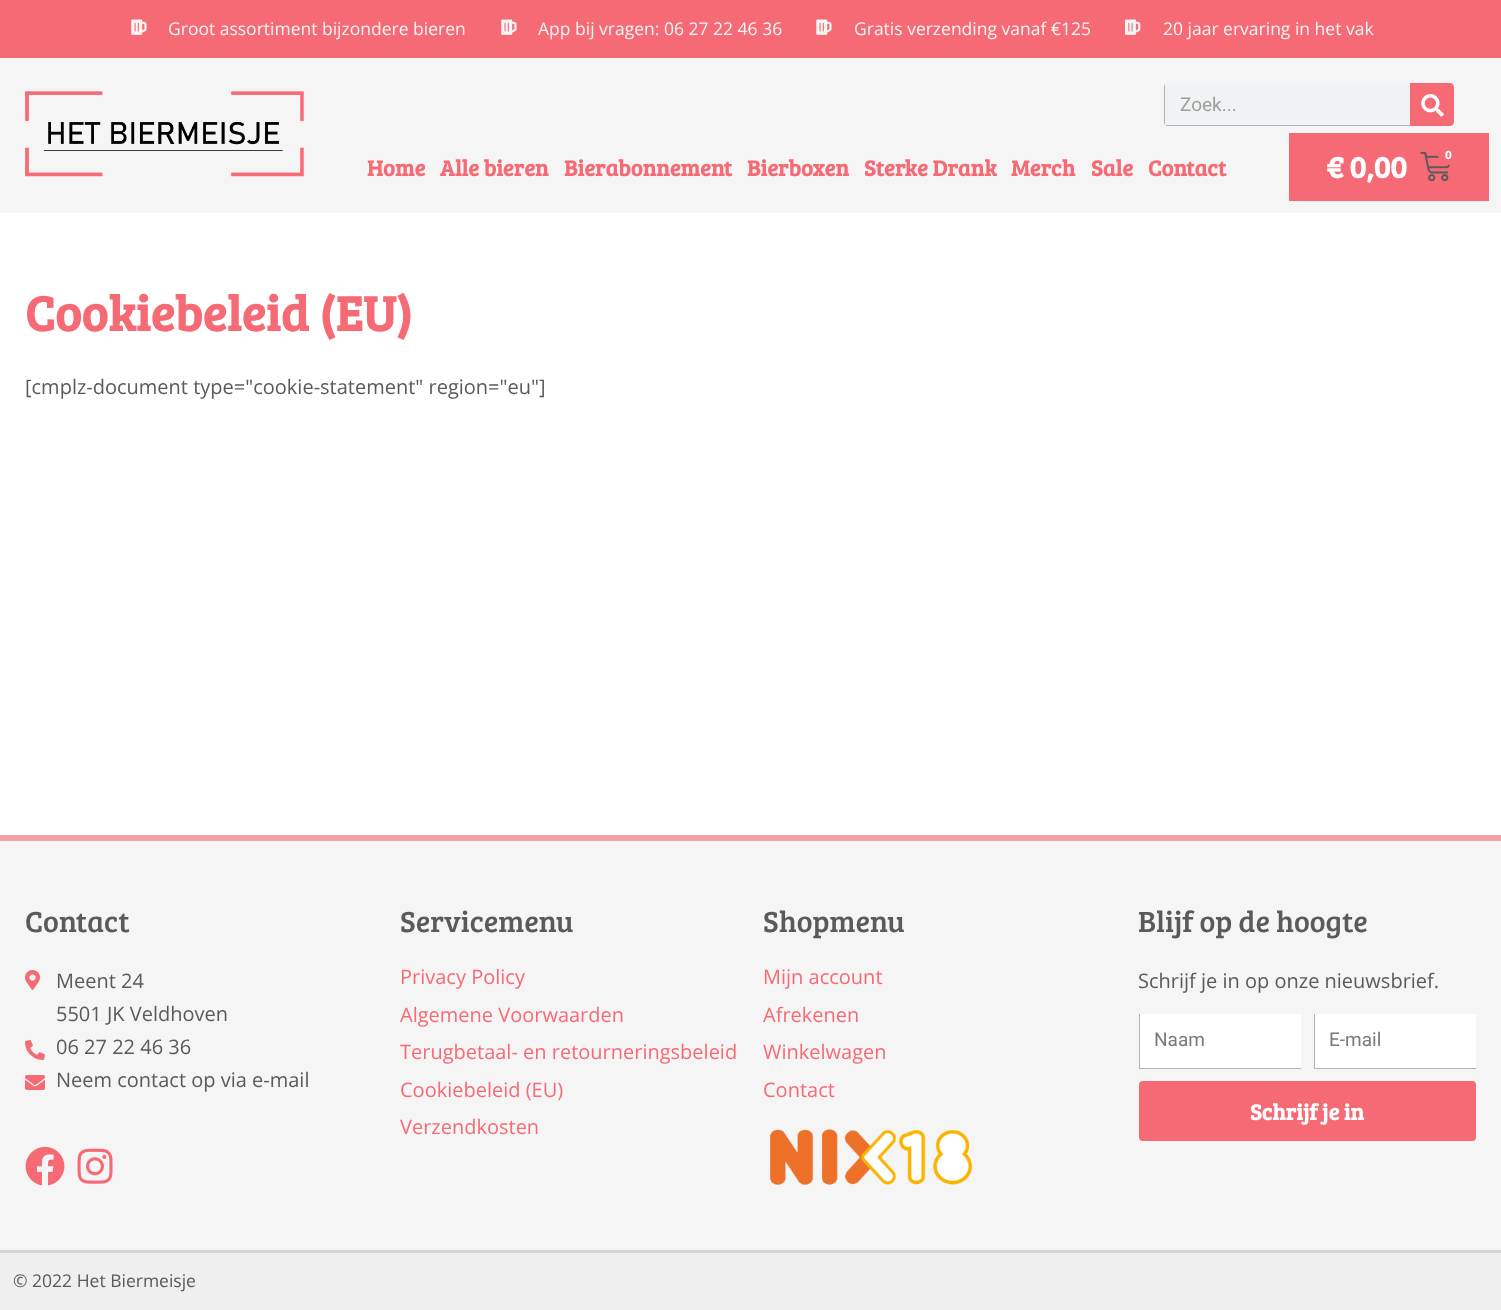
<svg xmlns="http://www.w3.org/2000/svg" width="1501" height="1310">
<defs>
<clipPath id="clip1"><rect x="1164" y="83" width="290" height="43" rx="4"/></clipPath>
</defs>
<rect width="100%" height="100%" fill="#fff"/>
<rect width="1501" height="58" fill="#f66a75"/>
<image x="131" y="19" width="16" height="16" href="media/1.png"/>
<text x="168" y="35" style="font-family:Open Sans;font-size:17.5px;fill:#f5f5f5">Groot assortiment bijzondere bieren</text>
<image x="501" y="19" width="16" height="16" href="media/1.png"/>
<text x="538" y="35" style="font-family:Open Sans;font-size:17.5px;fill:#f5f5f5">App bij vragen: 06 27 22 46 36</text>
<image x="816" y="19" width="16" height="16" href="media/1.png"/>
<text x="854" y="35" style="font-family:Open Sans;font-size:17.5px;fill:#f5f5f5">Gratis verzending vanaf €125</text>
<image x="1125" y="19" width="16" height="16" href="media/2.png"/>
<text x="1163" y="35" style="font-family:Open Sans;font-size:17.5px;fill:#f5f5f5">20 jaar ervaring in het vak</text>
<rect y="58" width="1501" height="155" fill="#f5f5f5"/>
<image x="25" y="91" width="279" height="86" href="media/3.png"/>
<text x="367" y="176" style="font-family:Bree Serif;font-size:22.5px;font-weight:bold;fill:#f66a75">Home</text>
<text x="440" y="176" style="font-family:Bree Serif;font-size:22.5px;font-weight:bold;fill:#f66a75">Alle bieren</text>
<text x="564" y="176" style="font-family:Bree Serif;font-size:22.5px;font-weight:bold;fill:#f66a75">Bierabonnement</text>
<text x="747" y="176" style="font-family:Bree Serif;font-size:22.5px;font-weight:bold;fill:#f66a75">Bierboxen</text>
<text x="864" y="176" style="font-family:Bree Serif;font-size:22.5px;font-weight:bold;fill:#f66a75">Sterke Drank</text>
<text x="1011" y="176" style="font-family:Bree Serif;font-size:22.5px;font-weight:bold;fill:#f66a75">Merch</text>
<text x="1091" y="176" style="font-family:Bree Serif;font-size:22.5px;font-weight:bold;fill:#f66a75">Sale</text>
<text x="1148" y="176" style="font-family:Bree Serif;font-size:22.5px;font-weight:bold;fill:#f66a75">Contact</text>
<rect x="1164" y="83" width="290" height="43" rx="4" fill="#f1f2f3"/>
<g clip-path="url(#clip1)">
<rect x="1164" y="125" width="246" height="1" fill="#b4b4b4"/>
<rect x="1164" y="83" width="1" height="43" fill="#b4b4b4"/>
</g>
<text x="1180" y="111" style="font-family:Roboto;font-size:19px;fill:#9e9e9e">Zoek...</text>
<path d="M1410 83h40c2 0 4 2 4 4v35c0 2-2 4-4 4h-40z" fill="#f66a75"/>
<image x="1421" y="94" width="23" height="23" href="media/4.png"/>
<rect x="1289" y="133" width="200" height="68" fill="#f66a75"/>
<image x="1420" y="151" width="30" height="31" href="media/5.png"/>
<circle cx="1448" cy="155" r="10" fill="#f66a75"/>
<text x="1445" y="159" style="font-family:Bree Serif;font-size:12px;font-weight:bold;fill:#fff">0</text>
<text x="1326" y="178" style="font-family:Bree Serif;font-size:31px;font-weight:bold;fill:#fff">€ 0,00</text>
<text x="25" y="331" style="font-family:Bree Serif;font-size:50px;font-weight:bold;fill:#f66a75">Cookiebeleid (EU)</text>
<text x="25" y="394" style="font-family:Open Sans;font-size:20px;fill:#5a5a5a">[cmplz-document type="cookie-statement" region="eu"]</text>
<rect y="841" width="1501" height="409" fill="#f5f5f5"/>
<rect y="835" width="1501" height="6" fill="#f69ea5"/>
<text x="25" y="932" style="font-family:Bree Serif;font-size:30px;fill:#5a5a5a">Contact</text>
<image x="25" y="970" width="15" height="20" href="media/6.png"/>
<text x="56" y="988" style="font-family:Open Sans;font-size:20px;fill:#5a5a5a">Meent 24</text>
<text x="56" y="1021" style="font-family:Open Sans;font-size:20px;fill:#5a5a5a">5501 JK Veldhoven</text>
<image x="25" y="1040" width="20" height="20" href="media/7.png"/>
<text x="56" y="1054" style="font-family:Open Sans;font-size:20px;fill:#5a5a5a">06 27 22 46 36</text>
<image x="25" y="1075" width="20" height="15" href="media/8.png"/>
<text x="56" y="1087" style="font-family:Open Sans;font-size:20px;fill:#5a5a5a">Neem contact op via e-mail</text>
<image x="25" y="1146" width="40" height="40" href="media/9.png"/>
<image x="77" y="1148" width="36" height="36" href="media/10.png"/>
<text x="400" y="932" style="font-family:Bree Serif;font-size:30px;fill:#5a5a5a">Servicemenu</text>
<text x="400" y="984" style="font-family:Open Sans;font-size:20px;fill:#f66a75">Privacy Policy</text>
<text x="400" y="1022" style="font-family:Open Sans;font-size:20px;fill:#f66a75">Algemene Voorwaarden</text>
<text x="400" y="1059" style="font-family:Open Sans;font-size:20px;fill:#f66a75">Terugbetaal- en retourneringsbeleid</text>
<text x="400" y="1097" style="font-family:Open Sans;font-size:20px;fill:#f66a75">Cookiebeleid (EU)</text>
<text x="400" y="1134" style="font-family:Open Sans;font-size:20px;fill:#f66a75">Verzendkosten</text>
<text x="763" y="932" style="font-family:Bree Serif;font-size:30px;fill:#5a5a5a">Shopmenu</text>
<text x="763" y="984" style="font-family:Open Sans;font-size:20px;fill:#f66a75">Mijn account</text>
<text x="763" y="1022" style="font-family:Open Sans;font-size:20px;fill:#f66a75">Afrekenen</text>
<text x="763" y="1059" style="font-family:Open Sans;font-size:20px;fill:#f66a75">Winkelwagen</text>
<text x="763" y="1097" style="font-family:Open Sans;font-size:20px;fill:#f66a75">Contact</text>
<image x="770" y="1129" width="203" height="56" href="media/11.png"/>
<text x="1138" y="932" style="font-family:Bree Serif;font-size:30px;fill:#5a5a5a">Blijf op de hoogte</text>
<text x="1138" y="988" style="font-family:Open Sans;font-size:20px;fill:#5a5a5a">Schrijf je in op onze nieuwsbrief.</text>
<rect x="1140" y="1014" width="161" height="54" fill="#fff"/>
<rect x="1139" y="1068" width="162" height="1" fill="#b4b4b4"/>
<rect x="1139" y="1014" width="1" height="55" fill="#b4b4b4"/>
<text x="1154" y="1046" style="font-family:Roboto;font-size:19px;fill:#797a7c">Naam</text>
<rect x="1315" y="1014" width="161" height="54" fill="#fff"/>
<rect x="1314" y="1068" width="162" height="1" fill="#b4b4b4"/>
<rect x="1314" y="1014" width="1" height="55" fill="#b4b4b4"/>
<text x="1329" y="1046" style="font-family:Roboto;font-size:19px;fill:#797a7c">E-mail</text>
<rect x="1139" y="1081" width="337" height="60" rx="4" fill="#f66a75"/>
<text x="1250" y="1120" style="font-family:Bree Serif;font-size:22.5px;font-weight:bold;fill:#fff">Schrijf je in</text>
<rect y="1253" width="1501" height="57" fill="#efefef"/>
<rect y="1250" width="1501" height="3" fill="#d5d5d5"/>
<text x="13" y="1287" style="font-family:Open Sans;font-size:17.5px;fill:#5a5a5a">© 2022 Het Biermeisje</text>
</svg>
